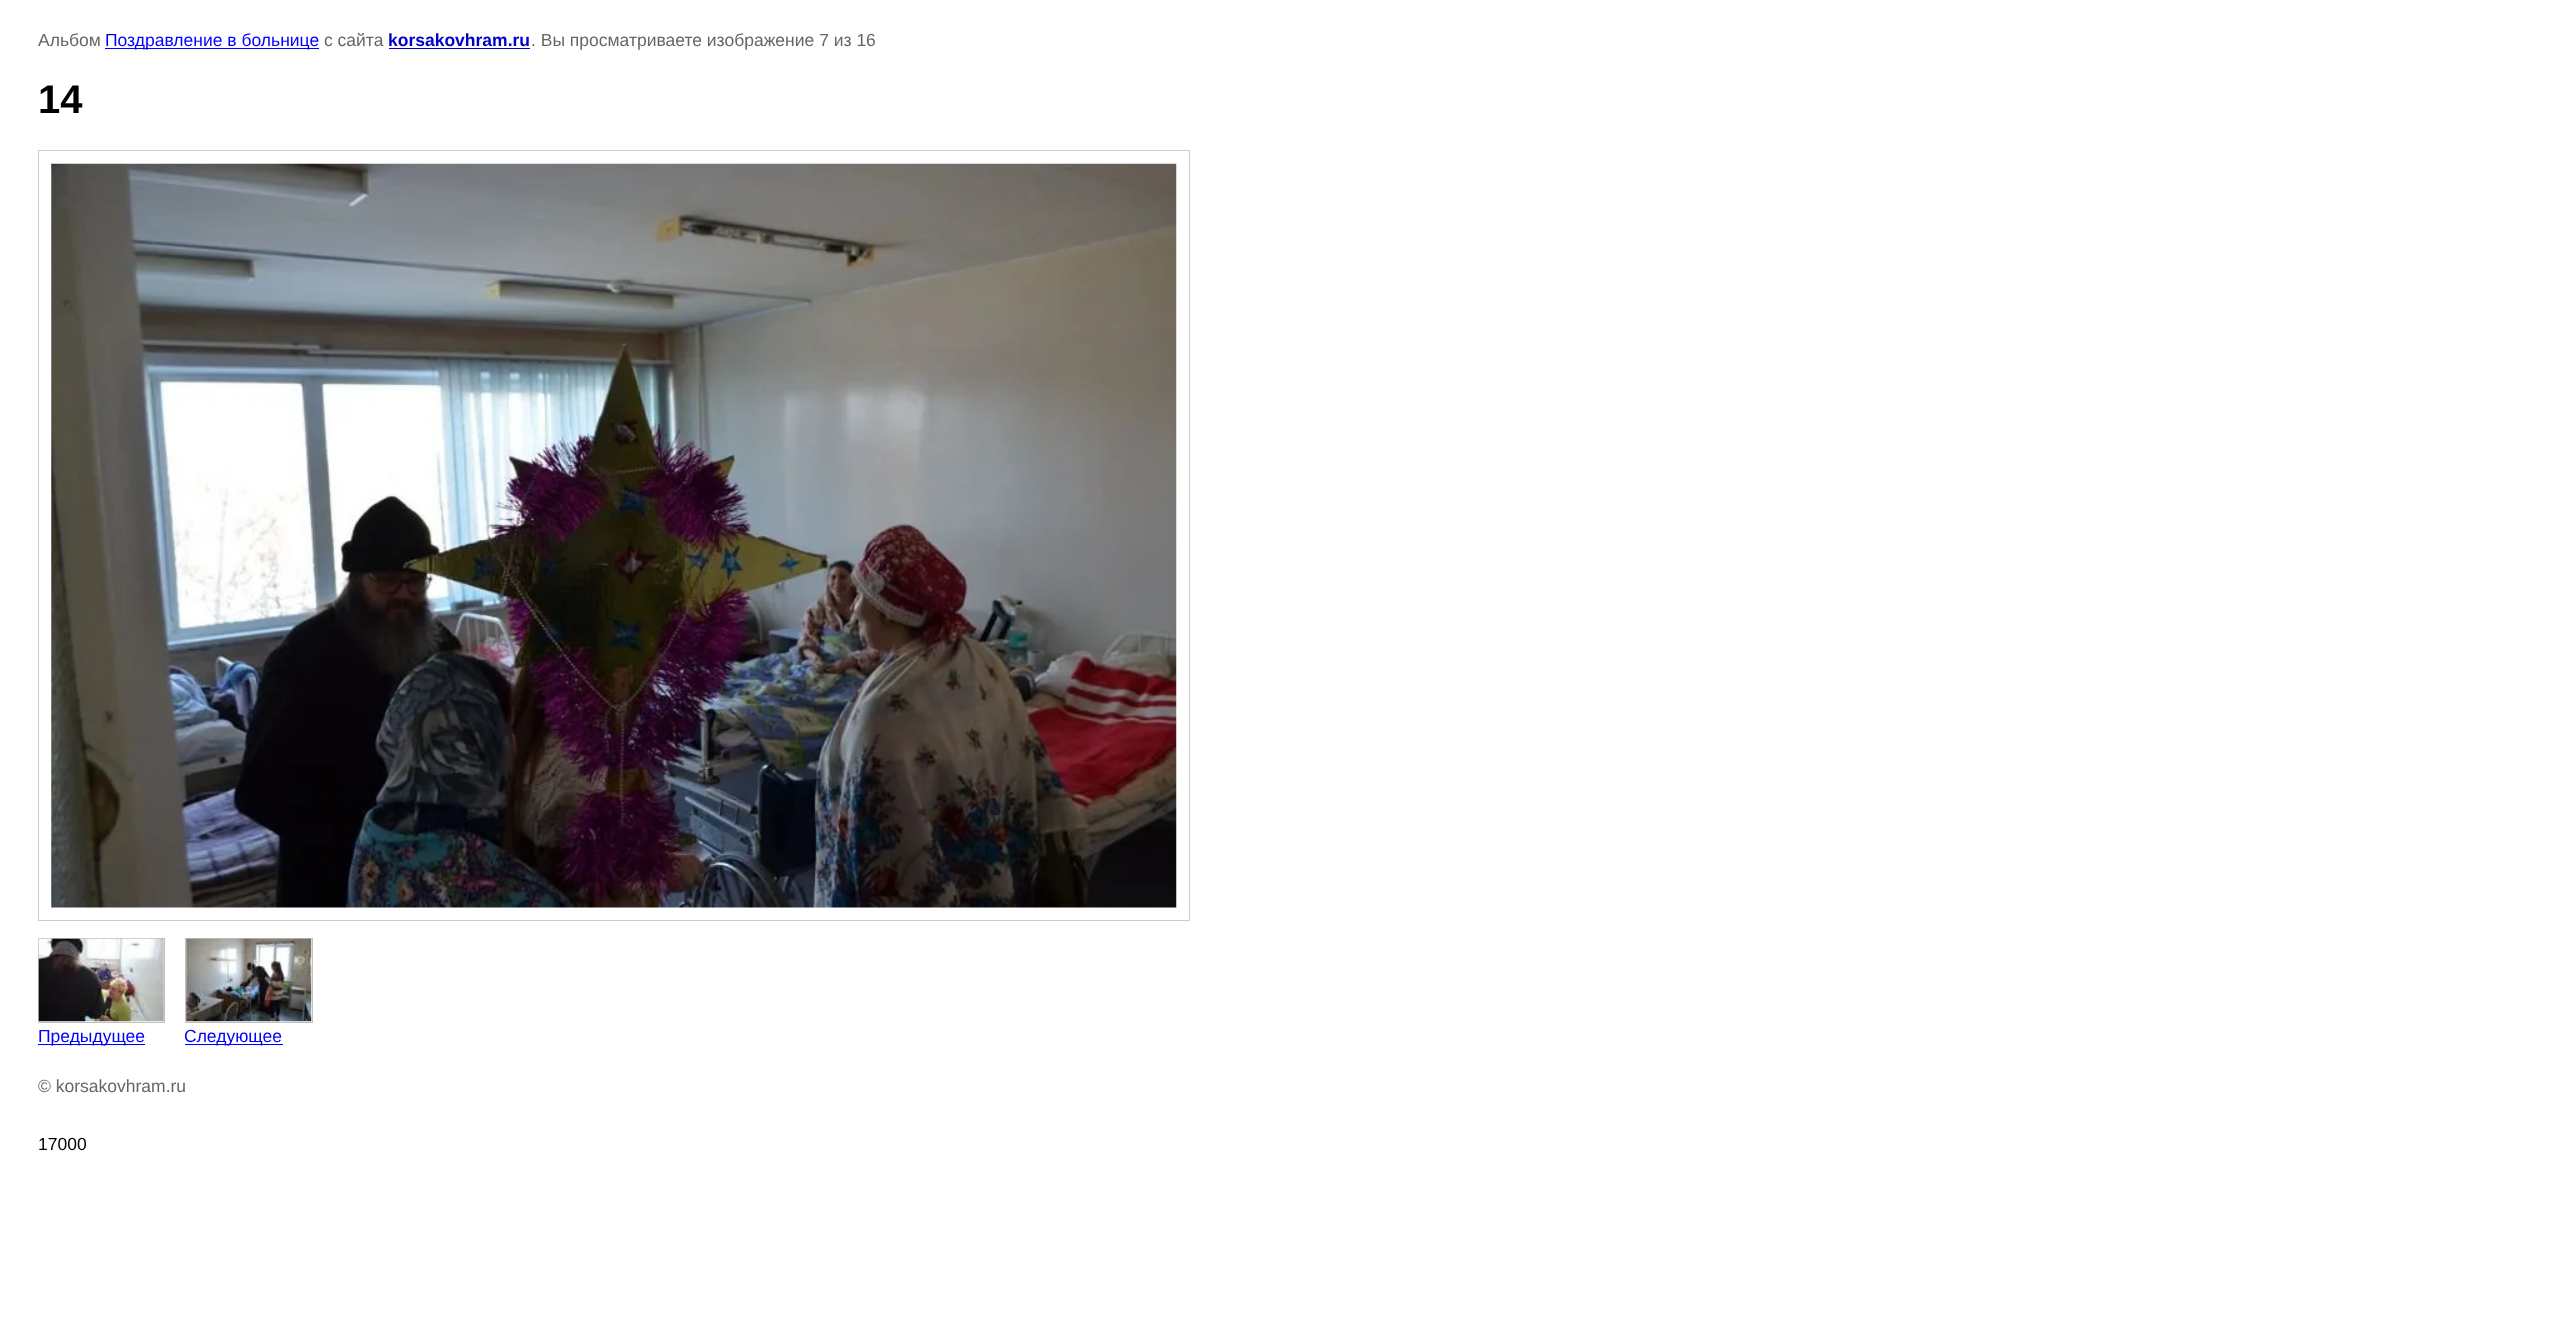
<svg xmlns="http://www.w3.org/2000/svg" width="2556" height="1344">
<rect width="100%" height="100%" fill="#fff"/>
<text x="38" y="46" style="font-family:Liberation Sans;font-size:17.5px;fill:#666">Альбом</text>
<rect x="105" y="48" width="214" height="1" fill="#00f"/>
<text x="105" y="46" style="font-family:Liberation Sans;font-size:17.5px;fill:#00f">Поздравление в больнице</text>
<text x="324" y="46" style="font-family:Liberation Sans;font-size:17.5px;fill:#666">с сайта</text>
<text x="388" y="46" style="font-family:Liberation Sans;font-size:17.5px;font-weight:bold;fill:#00c">korsakovhram.ru</text>
<rect x="389" y="48" width="141" height="1" fill="#00c"/>
<text x="531" y="46" style="font-family:Liberation Sans;font-size:17.5px;fill:#666">. Вы просматриваете изображение 7 из 16</text>
<text x="38" y="113" style="font-family:Liberation Sans;font-size:40px;font-weight:bold;fill:#000">14</text>
<rect x="38.5" y="150.5" width="1151" height="770" fill="none" stroke="#ccc"/>
<image x="51" y="163" width="1126" height="745" href="media/1.png"/>
<rect x="38.5" y="938.5" width="126" height="84" fill="none" stroke="#c0c0c0"/>
<image x="38" y="938" width="126" height="84" href="media/2.png"/>
<rect x="38" y="1044" width="107" height="1" fill="#00f"/>
<text x="38" y="1042" style="font-family:Liberation Sans;font-size:17.5px;fill:#00f">Предыдущее</text>
<rect x="185.5" y="938.5" width="127" height="84" fill="none" stroke="#c0c0c0"/>
<image x="186" y="938" width="126" height="84" href="media/3.png"/>
<rect x="185" y="1044" width="98" height="1" fill="#00f"/>
<text x="184" y="1042" style="font-family:Liberation Sans;font-size:17.5px;fill:#00f">Следующее</text>
<text x="38" y="1092" style="font-family:Liberation Sans;font-size:17.5px;fill:#666">© korsakovhram.ru</text>
<text x="38" y="1150" style="font-family:Liberation Sans;font-size:17.5px;fill:#000">17000</text>
</svg>
